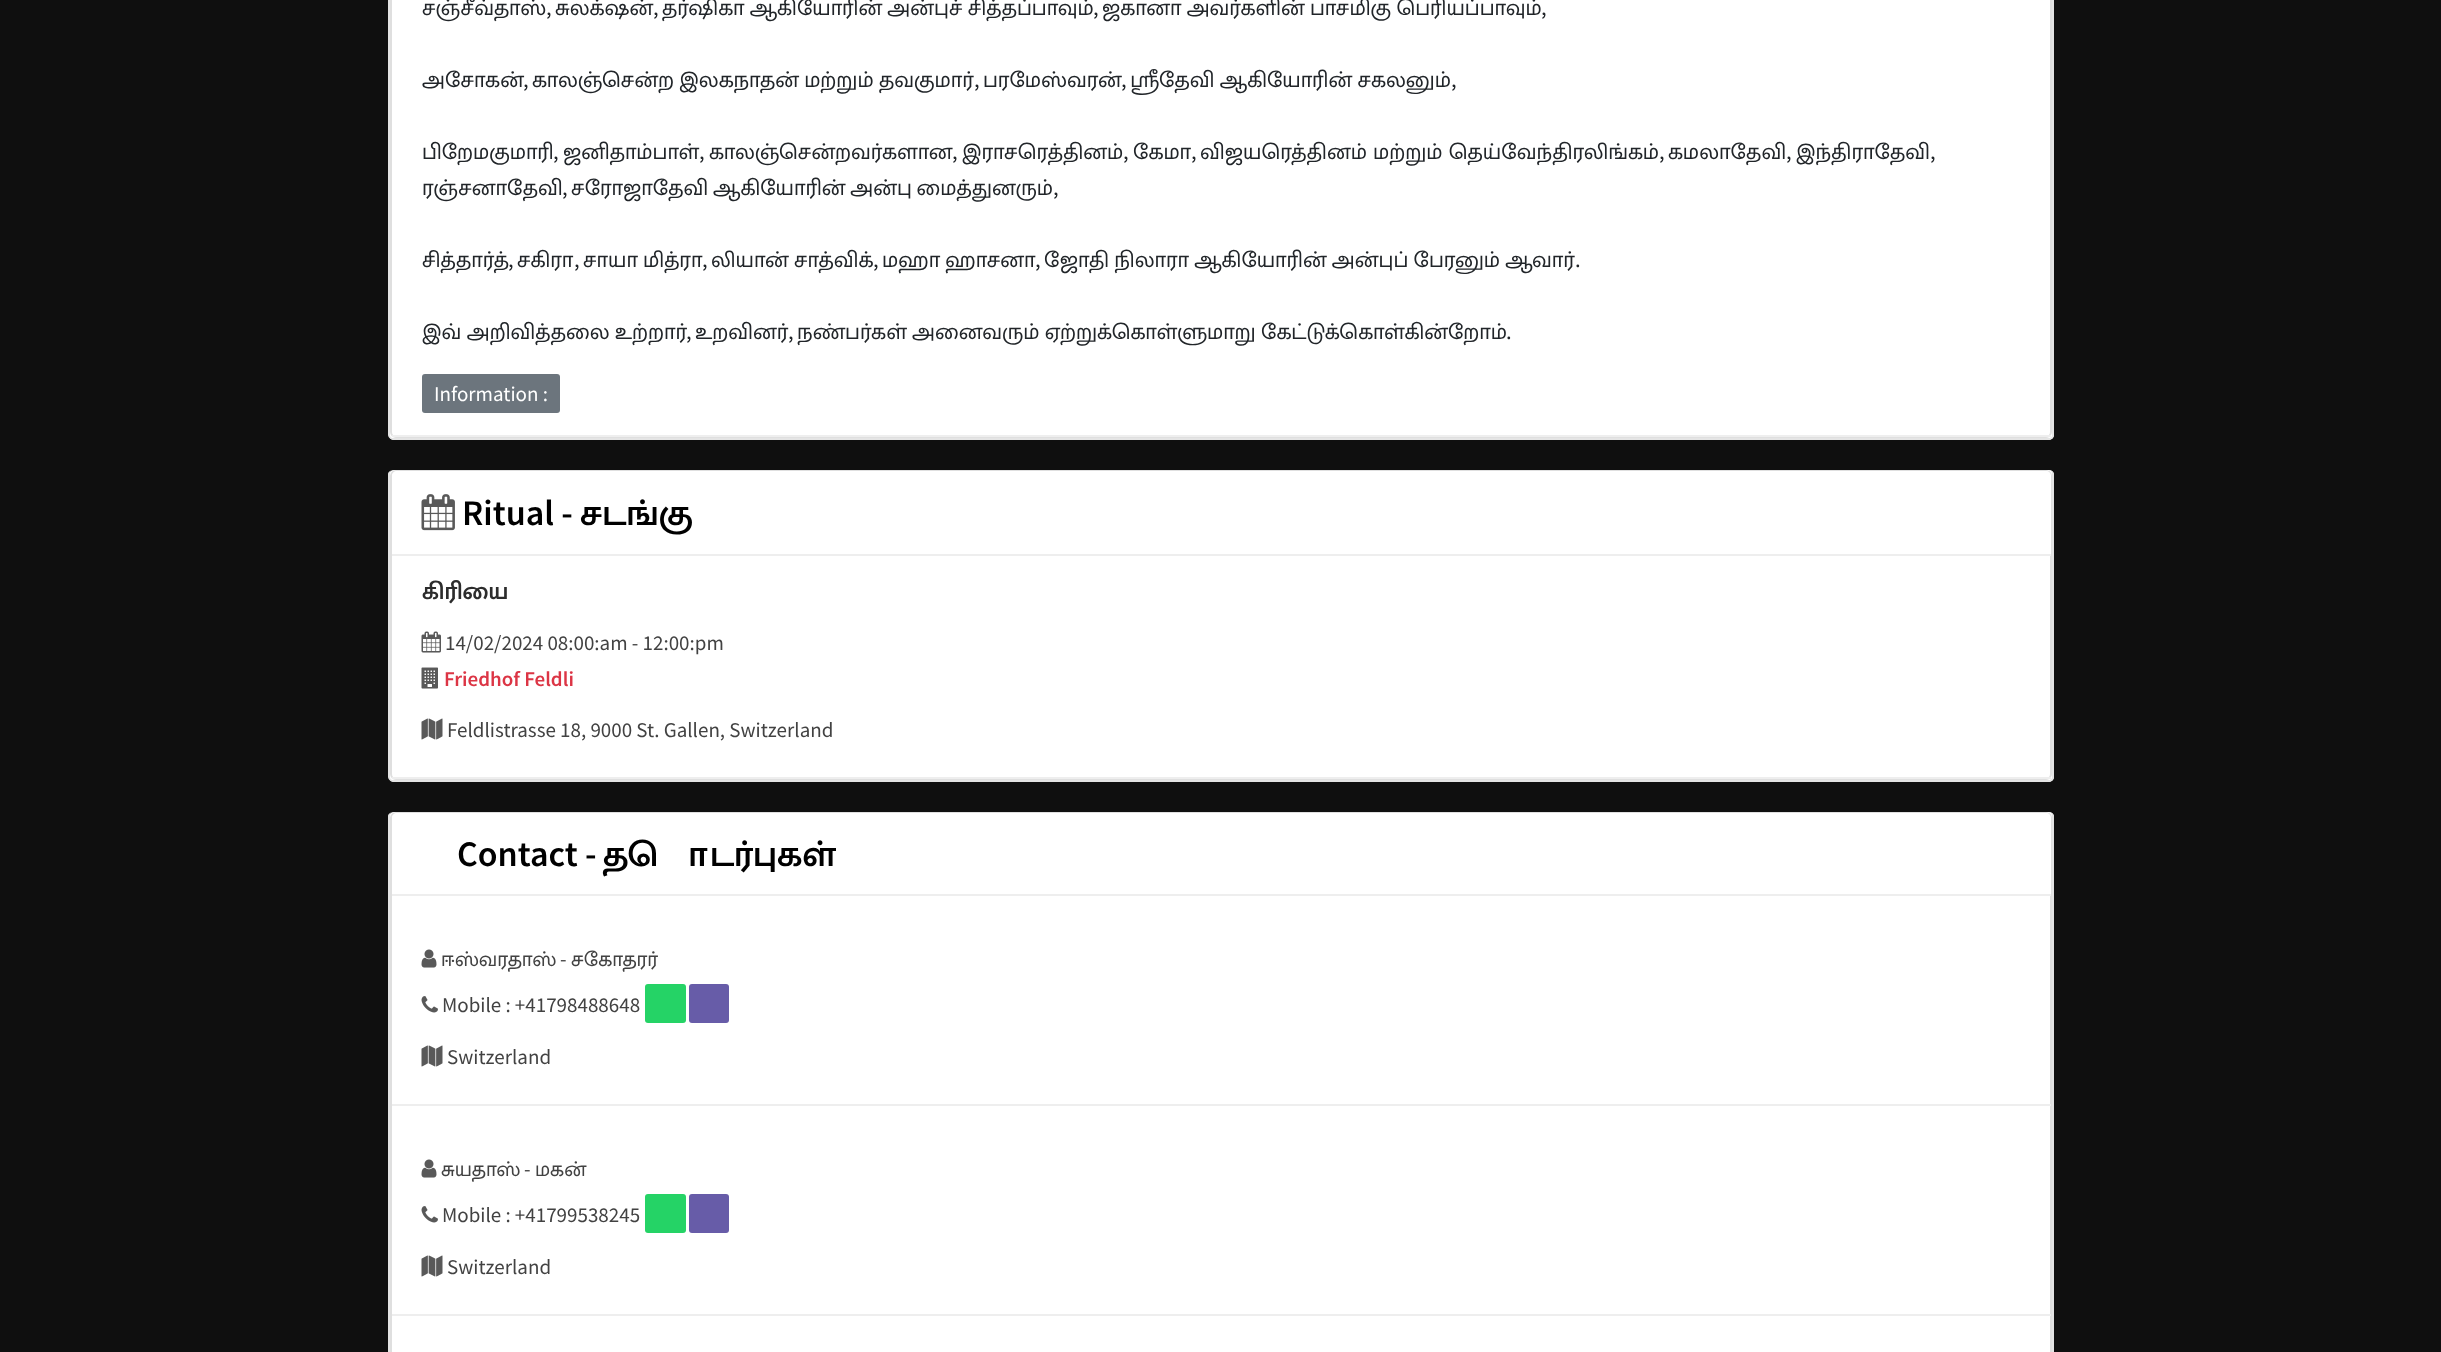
<svg xmlns="http://www.w3.org/2000/svg" width="2441" height="1352">
<rect width="100%" height="100%" fill="#0f0f0f"/>
<rect x="389" y="-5" width="1665" height="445" rx="5" fill="#fff"/>
<path d="M393-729h1656c2 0 5 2 5 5v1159c0 2-3 5-5 5h-1656c-2 0-5-3-5-5v-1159c0-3 3-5 5-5zm0 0h1656c2 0 3 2 3 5v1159c0 2-1 3-3 3h-1656c-2 0-3-1-3-3v-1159c0-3 1-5 3-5z" fill="#e4e4e4" fill-rule="evenodd"/>
<rect x="391" y="-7" width="1660" height="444" rx="5" fill="none" stroke="#dfdfdf" stroke-width="2"/>
<rect x="392" y="435" width="1659" height="2" fill="#eee"/>
<text x="422" y="15" style="font-family:Mukta Malar;font-size:22.5px;fill:#212529">சஞ்சீவ்தாஸ்</text>
<text x="546" y="15" style="font-family:Source Sans Pro;font-size:22.5px;fill:#212529">,</text>
<text x="555" y="15" style="font-family:Mukta Malar;font-size:22.5px;fill:#212529">சுலக்‌ஷன்</text>
<text x="653" y="15" style="font-family:Source Sans Pro;font-size:22.5px;fill:#212529">,</text>
<text x="662" y="15" word-spacing="-1" style="font-family:Mukta Malar;font-size:22.5px;fill:#212529">தர்ஷிகா ஆகியோரின் அன்புச் சித்தப்பாவும்</text>
<text x="1093" y="15" style="font-family:Source Sans Pro;font-size:22.5px;fill:#212529">,</text>
<text x="1102" y="15" word-spacing="-1" style="font-family:Mukta Malar;font-size:22.5px;fill:#212529">ஜகானா அவர்களின் பாசமிகு பெரியப்பாவும்</text>
<text x="1541" y="15" style="font-family:Source Sans Pro;font-size:22.5px;fill:#212529">,</text>
<text x="422" y="87" style="font-family:Mukta Malar;font-size:22.5px;fill:#212529">அசோகன்</text>
<text x="523" y="87" style="font-family:Source Sans Pro;font-size:22.5px;fill:#212529">,</text>
<text x="532" y="87" word-spacing="-1" style="font-family:Mukta Malar;font-size:22.5px;fill:#212529">காலஞ்சென்ற இலகநாதன் மற்றும் தவகுமார்</text>
<text x="974" y="87" style="font-family:Source Sans Pro;font-size:22.5px;fill:#212529">,</text>
<text x="983" y="87" style="font-family:Mukta Malar;font-size:22.5px;fill:#212529">பரமேஸ்வரன்</text>
<text x="1121" y="87" style="font-family:Source Sans Pro;font-size:22.5px;fill:#212529">,</text>
<text x="1130" y="87" word-spacing="-1" style="font-family:Mukta Malar;font-size:22.5px;fill:#212529">ஸ்ரீதேவி ஆகியோரின் சகலனும்</text>
<text x="1451" y="87" style="font-family:Source Sans Pro;font-size:22.5px;fill:#212529">,</text>
<text x="422" y="159" style="font-family:Mukta Malar;font-size:22.5px;fill:#212529">பிறேமகுமாரி</text>
<text x="553" y="159" style="font-family:Source Sans Pro;font-size:22.5px;fill:#212529">,</text>
<text x="563" y="159" style="font-family:Mukta Malar;font-size:22.5px;fill:#212529">ஜனிதாம்பாள்</text>
<text x="699" y="159" style="font-family:Source Sans Pro;font-size:22.5px;fill:#212529">,</text>
<text x="709" y="159" style="font-family:Mukta Malar;font-size:22.5px;fill:#212529">காலஞ்சென்றவர்களான</text>
<text x="952" y="159" style="font-family:Source Sans Pro;font-size:22.5px;fill:#212529">,</text>
<text x="962" y="159" style="font-family:Mukta Malar;font-size:22.5px;fill:#212529">இராசரெத்தினம்</text>
<text x="1123" y="159" style="font-family:Source Sans Pro;font-size:22.5px;fill:#212529">,</text>
<text x="1133" y="159" style="font-family:Mukta Malar;font-size:22.5px;fill:#212529">கேமா</text>
<text x="1191" y="159" style="font-family:Source Sans Pro;font-size:22.5px;fill:#212529">,</text>
<text x="1200" y="159" style="font-family:Mukta Malar;font-size:22.5px;fill:#212529">விஜயரெத்தினம் மற்றும் தெய்வேந்திரலிங்கம்</text>
<text x="1659" y="159" style="font-family:Source Sans Pro;font-size:22.5px;fill:#212529">,</text>
<text x="1668" y="159" style="font-family:Mukta Malar;font-size:22.5px;fill:#212529">கமலாதேவி</text>
<text x="1786" y="159" style="font-family:Source Sans Pro;font-size:22.5px;fill:#212529">,</text>
<text x="1796" y="159" style="font-family:Mukta Malar;font-size:22.5px;fill:#212529">இந்திராதேவி</text>
<text x="1930" y="159" style="font-family:Source Sans Pro;font-size:22.5px;fill:#212529">,</text>
<text x="422" y="195" style="font-family:Mukta Malar;font-size:22.5px;fill:#212529">ரஞ்சனாதேவி</text>
<text x="562" y="195" style="font-family:Source Sans Pro;font-size:22.5px;fill:#212529">,</text>
<text x="571" y="195" word-spacing="-1.5" style="font-family:Mukta Malar;font-size:22.5px;fill:#212529">சரோஜாதேவி ஆகியோரின் அன்பு மைத்துனரும்</text>
<text x="1053" y="195" style="font-family:Source Sans Pro;font-size:22.5px;fill:#212529">,</text>
<text x="422" y="267" style="font-family:Mukta Malar;font-size:22.5px;fill:#212529">சித்தார்த்</text>
<text x="508" y="267" style="font-family:Source Sans Pro;font-size:22.5px;fill:#212529">,</text>
<text x="517" y="267" style="font-family:Mukta Malar;font-size:22.5px;fill:#212529">சகிரா</text>
<text x="574" y="267" style="font-family:Source Sans Pro;font-size:22.5px;fill:#212529">,</text>
<text x="583" y="267" word-spacing="-1" style="font-family:Mukta Malar;font-size:22.5px;fill:#212529">சாயா மித்ரா</text>
<text x="702" y="267" style="font-family:Source Sans Pro;font-size:22.5px;fill:#212529">,</text>
<text x="711" y="267" word-spacing="-1" style="font-family:Mukta Malar;font-size:22.5px;fill:#212529">லியான் சாத்விக்</text>
<text x="873" y="267" style="font-family:Source Sans Pro;font-size:22.5px;fill:#212529">,</text>
<text x="882" y="267" word-spacing="-1" style="font-family:Mukta Malar;font-size:22.5px;fill:#212529">மஹா ஹாசனா</text>
<text x="1035" y="267" style="font-family:Source Sans Pro;font-size:22.5px;fill:#212529">,</text>
<text x="1044" y="267" word-spacing="-1" style="font-family:Mukta Malar;font-size:22.5px;fill:#212529">ஜோதி நிலாரா ஆகியோரின் அன்புப் பேரனும் ஆவார்</text>
<text x="1575" y="267" style="font-family:Source Sans Pro;font-size:22.5px;fill:#212529">.</text>
<text x="422" y="339" word-spacing="-1" style="font-family:Mukta Malar;font-size:22.5px;fill:#212529">இவ் அறிவித்தலை உற்றார்</text>
<text x="686" y="339" style="font-family:Source Sans Pro;font-size:22.5px;fill:#212529">,</text>
<text x="695" y="339" style="font-family:Mukta Malar;font-size:22.5px;fill:#212529">உறவினர்</text>
<text x="788" y="339" style="font-family:Source Sans Pro;font-size:22.5px;fill:#212529">,</text>
<text x="797" y="339" word-spacing="-1" style="font-family:Mukta Malar;font-size:22.5px;fill:#212529">நண்பர்கள் அனைவரும் ஏற்றுக்கொள்ளுமாறு கேட்டுக்கொள்கின்றோம்</text>
<text x="1506" y="339" style="font-family:Source Sans Pro;font-size:22.5px;fill:#212529">.</text>
<rect x="422" y="374" width="138" height="39" rx="3" fill="#6c757d"/>
<text x="434" y="401" style="font-family:Source Sans Pro;font-size:21px;fill:#fff">Information :</text>
<rect x="389" y="470" width="1665" height="312" rx="5" fill="#fff"/>
<path d="M393 470h1656c2 0 5 2 5 4v303c0 2-3 5-5 5h-1656c-2 0-5-3-5-5v-303c0-2 3-4 5-4zm0 0h1656c2 0 3 2 3 4v303c0 2-1 3-3 3h-1656c-2 0-3-1-3-3v-303c0-2 1-4 3-4z" fill="#e4e4e4" fill-rule="evenodd"/>
<rect x="391" y="471" width="1660" height="308" rx="5" fill="#fff" stroke="#dfdfdf" stroke-width="2"/>
<path d="M397 471h1649c3 0 5 2 5 5v79h-1659v-79c0-3 2-5 5-5z" fill="#fff"/>
<rect x="392" y="554" width="1659" height="2" fill="#eee"/>
<image x="421" y="494" width="34" height="37" href="media/1.png"/>
<text x="462" y="525" style="font-family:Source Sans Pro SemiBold;font-size:36px;font-weight:600;fill:#000">Ritual -</text>
<text x="580" y="525" style="font-family:Mukta Malar;font-size:36px;font-weight:600;fill:#000">சடங்கு</text>
<rect x="392" y="777" width="1659" height="2" fill="#eee"/>
<text x="422" y="599" style="font-family:Mukta Malar;font-size:24px;font-weight:600;fill:#2c2c2c">கிரியை</text>
<image x="421" y="631" width="20" height="22" href="media/2.png"/>
<text x="445" y="650" style="font-family:Source Sans Pro;font-size:21px;fill:#424242">14/02/2024 08:00:am - 12:00:pm</text>
<image x="421" y="667" width="17" height="22" href="media/3.png"/>
<text x="444" y="686" style="font-family:Source Sans Pro SemiBold;font-size:21px;font-weight:600;fill:#dc3545">Friedhof Feldli</text>
<image x="421" y="718" width="22" height="22" href="media/4.png"/>
<text x="447" y="737" style="font-family:Source Sans Pro;font-size:21px;fill:#424242">Feldlistrasse 18, 9000 St. Gallen, Switzerland</text>
<rect x="389" y="812" width="1665" height="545" rx="5" fill="#fff"/>
<path d="M393 812h1656c2 0 5 2 5 4v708c0 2-3 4-5 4h-1656c-2 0-5-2-5-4v-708c0-2 3-4 5-4zm0 0h1656c2 0 3 2 3 4v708c0 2-1 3-3 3h-1656c-2 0-3-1-3-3v-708c0-2 1-4 3-4z" fill="#e4e4e4" fill-rule="evenodd"/>
<rect x="391" y="813" width="1660" height="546" rx="5" fill="#fff" stroke="#dfdfdf" stroke-width="2"/>
<path d="M397 813h1649c3 0 5 2 5 5v78h-1659v-78c0-3 2-5 5-5z" fill="#fff"/>
<rect x="392" y="894" width="1659" height="2" fill="#eee"/>
<text x="457" y="866" style="font-family:Source Sans Pro SemiBold;font-size:36px;font-weight:600;fill:#000">Contact -</text>
<text x="603" y="866" style="font-family:Mukta Malar;font-size:36px;font-weight:600;fill:#000">தொடர்புகள்</text>
<rect x="392" y="1104" width="1659" height="2" fill="#eee"/>
<image x="421" y="949" width="16" height="19" href="media/5.png"/>
<text x="441" y="966" style="font-family:Mukta Malar;font-size:21px;fill:#424242">ஈஸ்வரதாஸ்</text>
<text x="560" y="966" style="font-family:Source Sans Pro;font-size:21px;fill:#424242">-</text>
<text x="571" y="966" style="font-family:Mukta Malar;font-size:21px;fill:#424242">சகோதரர்</text>
<image x="421" y="996" width="17" height="17" href="media/6.png"/>
<text x="442" y="1012" style="font-family:Source Sans Pro;font-size:21px;fill:#424242">Mobile : +41798488648</text>
<rect x="645" y="984" width="41" height="39" rx="3" fill="#25d366"/>
<rect x="689" y="984" width="40" height="39" rx="3" fill="#675ca8"/>
<image x="421" y="1045" width="22" height="22" href="media/4.png"/>
<text x="447" y="1064" style="font-family:Source Sans Pro;font-size:21px;fill:#424242">Switzerland</text>
<rect x="392" y="1314" width="1659" height="2" fill="#eee"/>
<image x="421" y="1159" width="16" height="19" href="media/5.png"/>
<text x="441" y="1176" style="font-family:Mukta Malar;font-size:21px;fill:#424242">சுயதாஸ்</text>
<text x="524" y="1176" style="font-family:Source Sans Pro;font-size:21px;fill:#424242">-</text>
<text x="535" y="1176" style="font-family:Mukta Malar;font-size:21px;fill:#424242">மகன்</text>
<image x="421" y="1206" width="17" height="17" href="media/6.png"/>
<text x="442" y="1222" style="font-family:Source Sans Pro;font-size:21px;fill:#424242">Mobile : +41799538245</text>
<rect x="645" y="1194" width="41" height="39" rx="3" fill="#25d366"/>
<rect x="689" y="1194" width="40" height="39" rx="3" fill="#675ca8"/>
<image x="421" y="1255" width="22" height="22" href="media/4.png"/>
<text x="447" y="1274" style="font-family:Source Sans Pro;font-size:21px;fill:#424242">Switzerland</text>
</svg>
